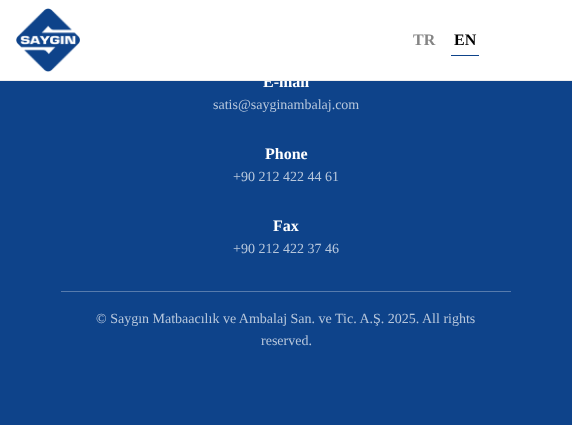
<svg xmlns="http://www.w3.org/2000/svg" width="572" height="425">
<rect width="100%" height="100%" fill="#0e438a"/>
<rect width="572" height="80" fill="#fff"/>
<text x="263" y="87" style="font-family:Liberation Serif;font-size:16px;font-weight:bold;fill:#fff">E-mail</text>
<rect y="80" width="572" height="1" fill="#eee"/>
<image x="16" y="8" width="64" height="64" href="media/1.png"/>
<text x="413" y="45" style="font-family:Liberation Serif;font-size:16px;font-weight:bold;fill:#858585">TR</text>
<text x="454" y="45" style="font-family:Liberation Serif;font-size:16px;font-weight:bold;fill:#000">EN</text>
<rect x="451" y="55" width="28" height="1" fill="#0e438a"/>
<rect x="61" y="291" width="450" height="1" fill="#567bad"/>
<text x="213" y="109" style="font-family:Liberation Serif;font-size:14px;fill:#b7c7dc">satis@sayginambalaj.com</text>
<text x="265" y="159" style="font-family:Liberation Serif;font-size:16px;font-weight:bold;fill:#fff">Phone</text>
<text x="233" y="181" style="font-family:Liberation Serif;font-size:14px;fill:#b7c7dc">+90 212 422 44 61</text>
<text x="273" y="231" style="font-family:Liberation Serif;font-size:16px;font-weight:bold;fill:#fff">Fax</text>
<text x="233" y="253" style="font-family:Liberation Serif;font-size:14px;fill:#b7c7dc">+90 212 422 37 46</text>
<text x="96" y="323" style="font-family:Liberation Serif;font-size:14px;fill:#b7c7dc">© Saygın Matbaacılık ve Ambalaj San. ve Tic. A.Ş. 2025. All rights</text>
<text x="261" y="345" style="font-family:Liberation Serif;font-size:14px;fill:#b7c7dc">reserved.</text>
</svg>
